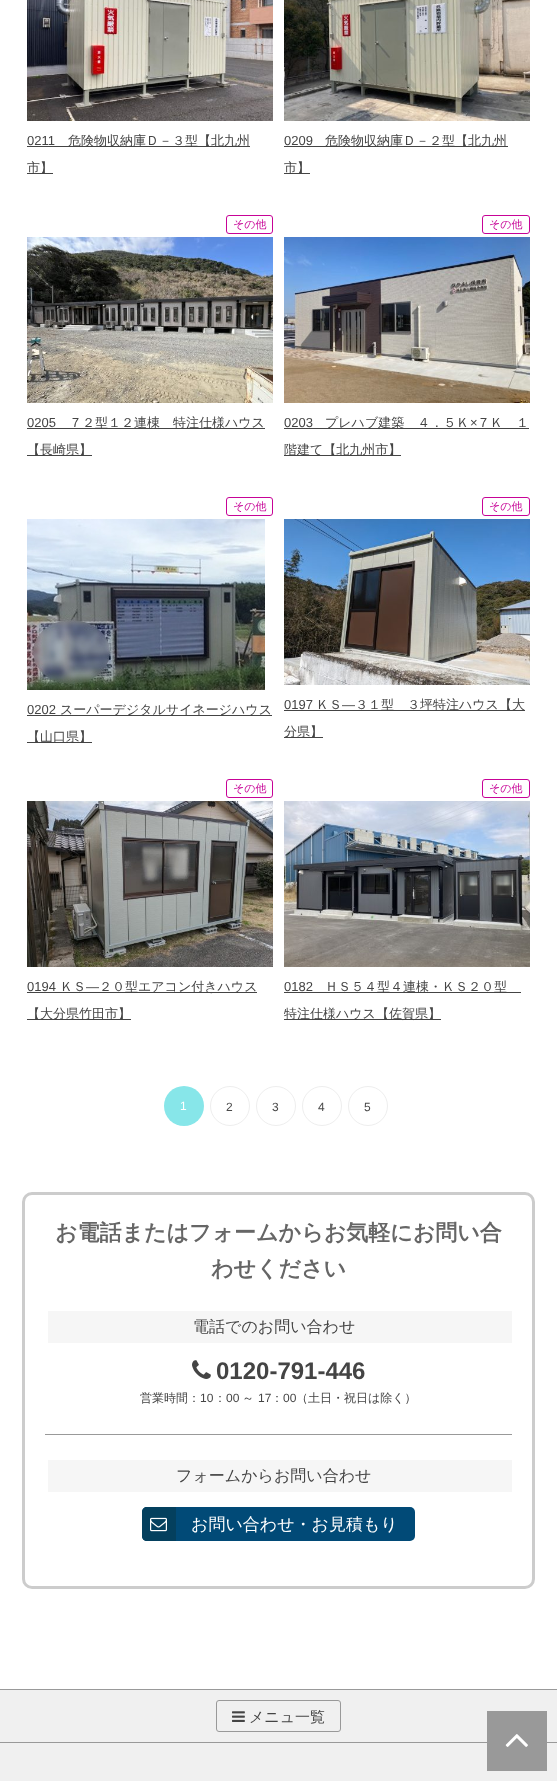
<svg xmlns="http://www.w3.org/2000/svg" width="557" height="1781">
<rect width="100%" height="100%" fill="#fff"/>
<image x="27" y="0" width="246" height="121" href="media/1.png"/>
<text x="27" y="145" style="font-family:Liberation Sans;font-size:13px;fill:#444">0211</text>
<rect x="27" y="146" width="223" height="1" fill="#444"/>
<text x="68" y="145" style="font-family:WenQuanYi Zen Hei;font-size:13px;font-weight:500;fill:#444">危険物収納庫Ｄ－３型【北九州</text>
<rect x="27" y="173" width="26" height="1" fill="#444"/>
<text x="27" y="172" style="font-family:WenQuanYi Zen Hei;font-size:13px;font-weight:500;fill:#444">市】</text>
<image x="284" y="0" width="246" height="121" href="media/2.png"/>
<text x="284" y="145" style="font-family:Liberation Sans;font-size:13px;fill:#444">0209</text>
<rect x="284" y="146" width="224" height="1" fill="#444"/>
<text x="325" y="145" style="font-family:WenQuanYi Zen Hei;font-size:13px;font-weight:500;fill:#444">危険物収納庫Ｄ－２型【北九州</text>
<rect x="284" y="173" width="26" height="1" fill="#444"/>
<text x="284" y="172" style="font-family:WenQuanYi Zen Hei;font-size:13px;font-weight:500;fill:#444">市】</text>
<rect x="226.5" y="215.5" width="46" height="18" rx="2.5" fill="none" stroke="#c70397"/>
<text x="233" y="228" style="font-family:WenQuanYi Zen Hei;font-size:11px;font-weight:500;fill:#c70397">その他</text>
<image x="27" y="237" width="246" height="166" href="media/3.png"/>
<text x="27" y="427" style="font-family:Liberation Sans;font-size:13px;fill:#444">0205</text>
<rect x="27" y="428" width="238" height="1" fill="#444"/>
<text x="69" y="427" style="font-family:WenQuanYi Zen Hei;font-size:13px;font-weight:500;fill:#444">７２型１２連棟　特注仕様ハウス</text>
<rect x="27" y="455" width="65" height="1" fill="#444"/>
<text x="27" y="454" style="font-family:WenQuanYi Zen Hei;font-size:13px;font-weight:500;fill:#444">【長崎県】</text>
<rect x="482.5" y="215.5" width="47" height="18" rx="2.5" fill="none" stroke="#c70397"/>
<text x="489" y="228" style="font-family:WenQuanYi Zen Hei;font-size:11px;font-weight:500;fill:#c70397">その他</text>
<image x="284" y="237" width="246" height="166" href="media/4.png"/>
<text x="284" y="427" style="font-family:Liberation Sans;font-size:13px;fill:#444">0203</text>
<rect x="284" y="428" width="245" height="1" fill="#444"/>
<text x="325" y="427" style="font-family:WenQuanYi Zen Hei;font-size:13px;font-weight:500;fill:#444">プレハブ建築　４．５Ｋ</text>
<text x="470" y="427" style="font-family:Liberation Sans;font-size:13px;fill:#444">×</text>
<text x="477" y="427" style="font-family:WenQuanYi Zen Hei;font-size:13px;font-weight:500;fill:#444">７Ｋ　１</text>
<rect x="284" y="455" width="117" height="1" fill="#444"/>
<text x="284" y="454" style="font-family:WenQuanYi Zen Hei;font-size:13px;font-weight:500;fill:#444">階建て【北九州市】</text>
<rect x="226.5" y="497.5" width="46" height="18" rx="2.5" fill="none" stroke="#c70397"/>
<text x="233" y="510" style="font-family:WenQuanYi Zen Hei;font-size:11px;font-weight:500;fill:#c70397">その他</text>
<image x="27" y="519" width="238" height="171" href="media/5.png"/>
<text x="27" y="714" style="font-family:Liberation Sans;font-size:13px;fill:#444">0202</text>
<rect x="27" y="715" width="245" height="1" fill="#444"/>
<text x="60" y="714" style="font-family:WenQuanYi Zen Hei;font-size:13px;font-weight:500;fill:#444">スーパーデジタルサイネージハウス</text>
<rect x="27" y="742" width="65" height="1" fill="#444"/>
<text x="27" y="741" style="font-family:WenQuanYi Zen Hei;font-size:13px;font-weight:500;fill:#444">【山口県】</text>
<rect x="482.5" y="497.5" width="47" height="18" rx="2.5" fill="none" stroke="#c70397"/>
<text x="489" y="510" style="font-family:WenQuanYi Zen Hei;font-size:11px;font-weight:500;fill:#c70397">その他</text>
<image x="284" y="519" width="246" height="166" href="media/6.png"/>
<text x="284" y="709" style="font-family:Liberation Sans;font-size:13px;fill:#444">0197</text>
<text x="316" y="709" style="font-family:WenQuanYi Zen Hei;font-size:13px;font-weight:500;fill:#444">ＫＳ</text>
<text x="342" y="709" style="font-family:Liberation Sans;font-size:13px;fill:#444">―</text>
<rect x="284" y="710" width="241" height="1" fill="#444"/>
<text x="355" y="709" style="font-family:WenQuanYi Zen Hei;font-size:13px;font-weight:500;fill:#444">３１型　３坪特注ハウス【大</text>
<rect x="284" y="737" width="39" height="1" fill="#444"/>
<text x="284" y="736" style="font-family:WenQuanYi Zen Hei;font-size:13px;font-weight:500;fill:#444">分県】</text>
<rect x="226.5" y="779.5" width="46" height="18" rx="2.5" fill="none" stroke="#c70397"/>
<text x="233" y="792" style="font-family:WenQuanYi Zen Hei;font-size:11px;font-weight:500;fill:#c70397">その他</text>
<image x="27" y="801" width="246" height="166" href="media/7.png"/>
<text x="27" y="991" style="font-family:Liberation Sans;font-size:13px;fill:#444">0194</text>
<text x="60" y="991" style="font-family:WenQuanYi Zen Hei;font-size:13px;font-weight:500;fill:#444">ＫＳ</text>
<text x="86" y="991" style="font-family:Liberation Sans;font-size:13px;fill:#444">―</text>
<rect x="27" y="992" width="230" height="1" fill="#444"/>
<text x="99" y="991" style="font-family:WenQuanYi Zen Hei;font-size:13px;font-weight:500;fill:#444">２０型エアコン付きハウス</text>
<rect x="27" y="1019" width="104" height="1" fill="#444"/>
<text x="27" y="1018" style="font-family:WenQuanYi Zen Hei;font-size:13px;font-weight:500;fill:#444">【大分県竹田市】</text>
<rect x="482.5" y="779.5" width="47" height="18" rx="2.5" fill="none" stroke="#c70397"/>
<text x="489" y="792" style="font-family:WenQuanYi Zen Hei;font-size:11px;font-weight:500;fill:#c70397">その他</text>
<image x="284" y="801" width="246" height="166" href="media/8.png"/>
<text x="284" y="991" style="font-family:Liberation Sans;font-size:13px;fill:#444">0182</text>
<rect x="284" y="992" width="237" height="1" fill="#444"/>
<text x="325" y="991" style="font-family:WenQuanYi Zen Hei;font-size:13px;font-weight:500;fill:#444">ＨＳ５４型４連棟・ＫＳ２０型</text>
<rect x="284" y="1019" width="157" height="1" fill="#444"/>
<text x="284" y="1018" style="font-family:WenQuanYi Zen Hei;font-size:13px;font-weight:500;fill:#444">特注仕様ハウス【佐賀県】</text>
<circle cx="184" cy="1106" r="20" fill="#87e6e9"/>
<text x="180" y="1110" style="font-family:Liberation Sans;font-size:12px;fill:#fff">1</text>
<circle cx="230" cy="1106" r="19.5" fill="none" stroke="#eee"/>
<text x="226" y="1111" style="font-family:Liberation Sans;font-size:12px;fill:#4a4a4a">2</text>
<circle cx="276" cy="1106" r="19.5" fill="none" stroke="#eee"/>
<text x="272" y="1111" style="font-family:Liberation Sans;font-size:12px;fill:#4a4a4a">3</text>
<circle cx="322" cy="1106" r="19.5" fill="none" stroke="#eee"/>
<text x="318" y="1111" style="font-family:Liberation Sans;font-size:12px;fill:#4a4a4a">4</text>
<circle cx="368" cy="1106" r="19.5" fill="none" stroke="#eee"/>
<text x="364" y="1111" style="font-family:Liberation Sans;font-size:12px;fill:#4a4a4a">5</text>
<rect x="23.5" y="1193.5" width="510" height="394" rx="8.5" fill="none" stroke="#ccc" stroke-width="3"/>
<text x="55" y="1240" style="font-family:WenQuanYi Zen Hei;font-size:22px;font-weight:bold;fill:#666">お電話またはフォームからお気軽にお問い合</text>
<text x="211" y="1276" style="font-family:WenQuanYi Zen Hei;font-size:22px;font-weight:bold;fill:#666">わせください</text>
<rect x="48" y="1311" width="464" height="32" fill="#f6f6f6"/>
<text x="193" y="1332" style="font-family:WenQuanYi Zen Hei;font-size:16px;font-weight:500;fill:#444">電話でのお問い合わせ</text>
<image x="192" y="1360" width="19" height="19" href="media/9.png"/>
<text x="216" y="1379" style="font-family:Liberation Sans;font-size:24px;font-weight:bold;fill:#444">0120-791-446</text>
<text x="140" y="1402" style="font-family:WenQuanYi Zen Hei;font-size:12px;font-weight:500;fill:#444">営業時間：</text>
<text x="200" y="1402" style="font-family:Liberation Sans;font-size:12px;fill:#444">10</text>
<text x="214" y="1402" style="font-family:WenQuanYi Zen Hei;font-size:12px;font-weight:500;fill:#444">：</text>
<text x="226" y="1402" style="font-family:Liberation Sans;font-size:12px;fill:#444">00</text>
<text x="242" y="1402" style="font-family:WenQuanYi Zen Hei;font-size:12px;font-weight:500;fill:#444">～</text>
<text x="258" y="1402" style="font-family:Liberation Sans;font-size:12px;fill:#444">17</text>
<text x="271" y="1402" style="font-family:WenQuanYi Zen Hei;font-size:12px;font-weight:500;fill:#444">：</text>
<text x="283" y="1402" style="font-family:Liberation Sans;font-size:12px;fill:#444">00</text>
<text x="296" y="1402" style="font-family:WenQuanYi Zen Hei;font-size:12px;font-weight:500;fill:#444">（土日・祝日は除く）</text>
<rect x="45" y="1434" width="467" height="1" fill="#999"/>
<rect x="48" y="1460" width="464" height="32" fill="#f6f6f6"/>
<text x="176" y="1481" style="font-family:WenQuanYi Zen Hei;font-size:16px;font-weight:500;fill:#444">フォームからお問い合わせ</text>
<rect x="142" y="1507" width="273" height="34" rx="5" fill="#014a77"/>
<path d="M147 1507h29v34h-29c-3 0-5-2-5-5v-24c0-3 2-5 5-5z" fill="#04405e"/>
<image x="150" y="1517" width="17" height="15" href="media/10.png"/>
<text x="191" y="1530" style="font-family:WenQuanYi Zen Hei;font-size:17px;font-weight:500;fill:#fff">お問い合わせ・お見積もり</text>
<rect y="1690" width="557" height="91" fill="#f0f0f0"/>
<rect y="1689" width="557" height="1" fill="#999"/>
<rect y="1742" width="557" height="1" fill="#999"/>
<rect x="216.5" y="1700.5" width="124" height="31" rx="2.5" fill="none" stroke="#999"/>
<image x="232" y="1711" width="13" height="11" href="media/11.png"/>
<text x="249" y="1722" style="font-family:WenQuanYi Zen Hei;font-size:15px;font-weight:500;fill:#444">メニュ一覧</text>
<rect x="487" y="1711" width="60" height="60" fill="#999"/>
<image x="505" y="1734" width="23" height="13" href="media/12.png"/>
</svg>
